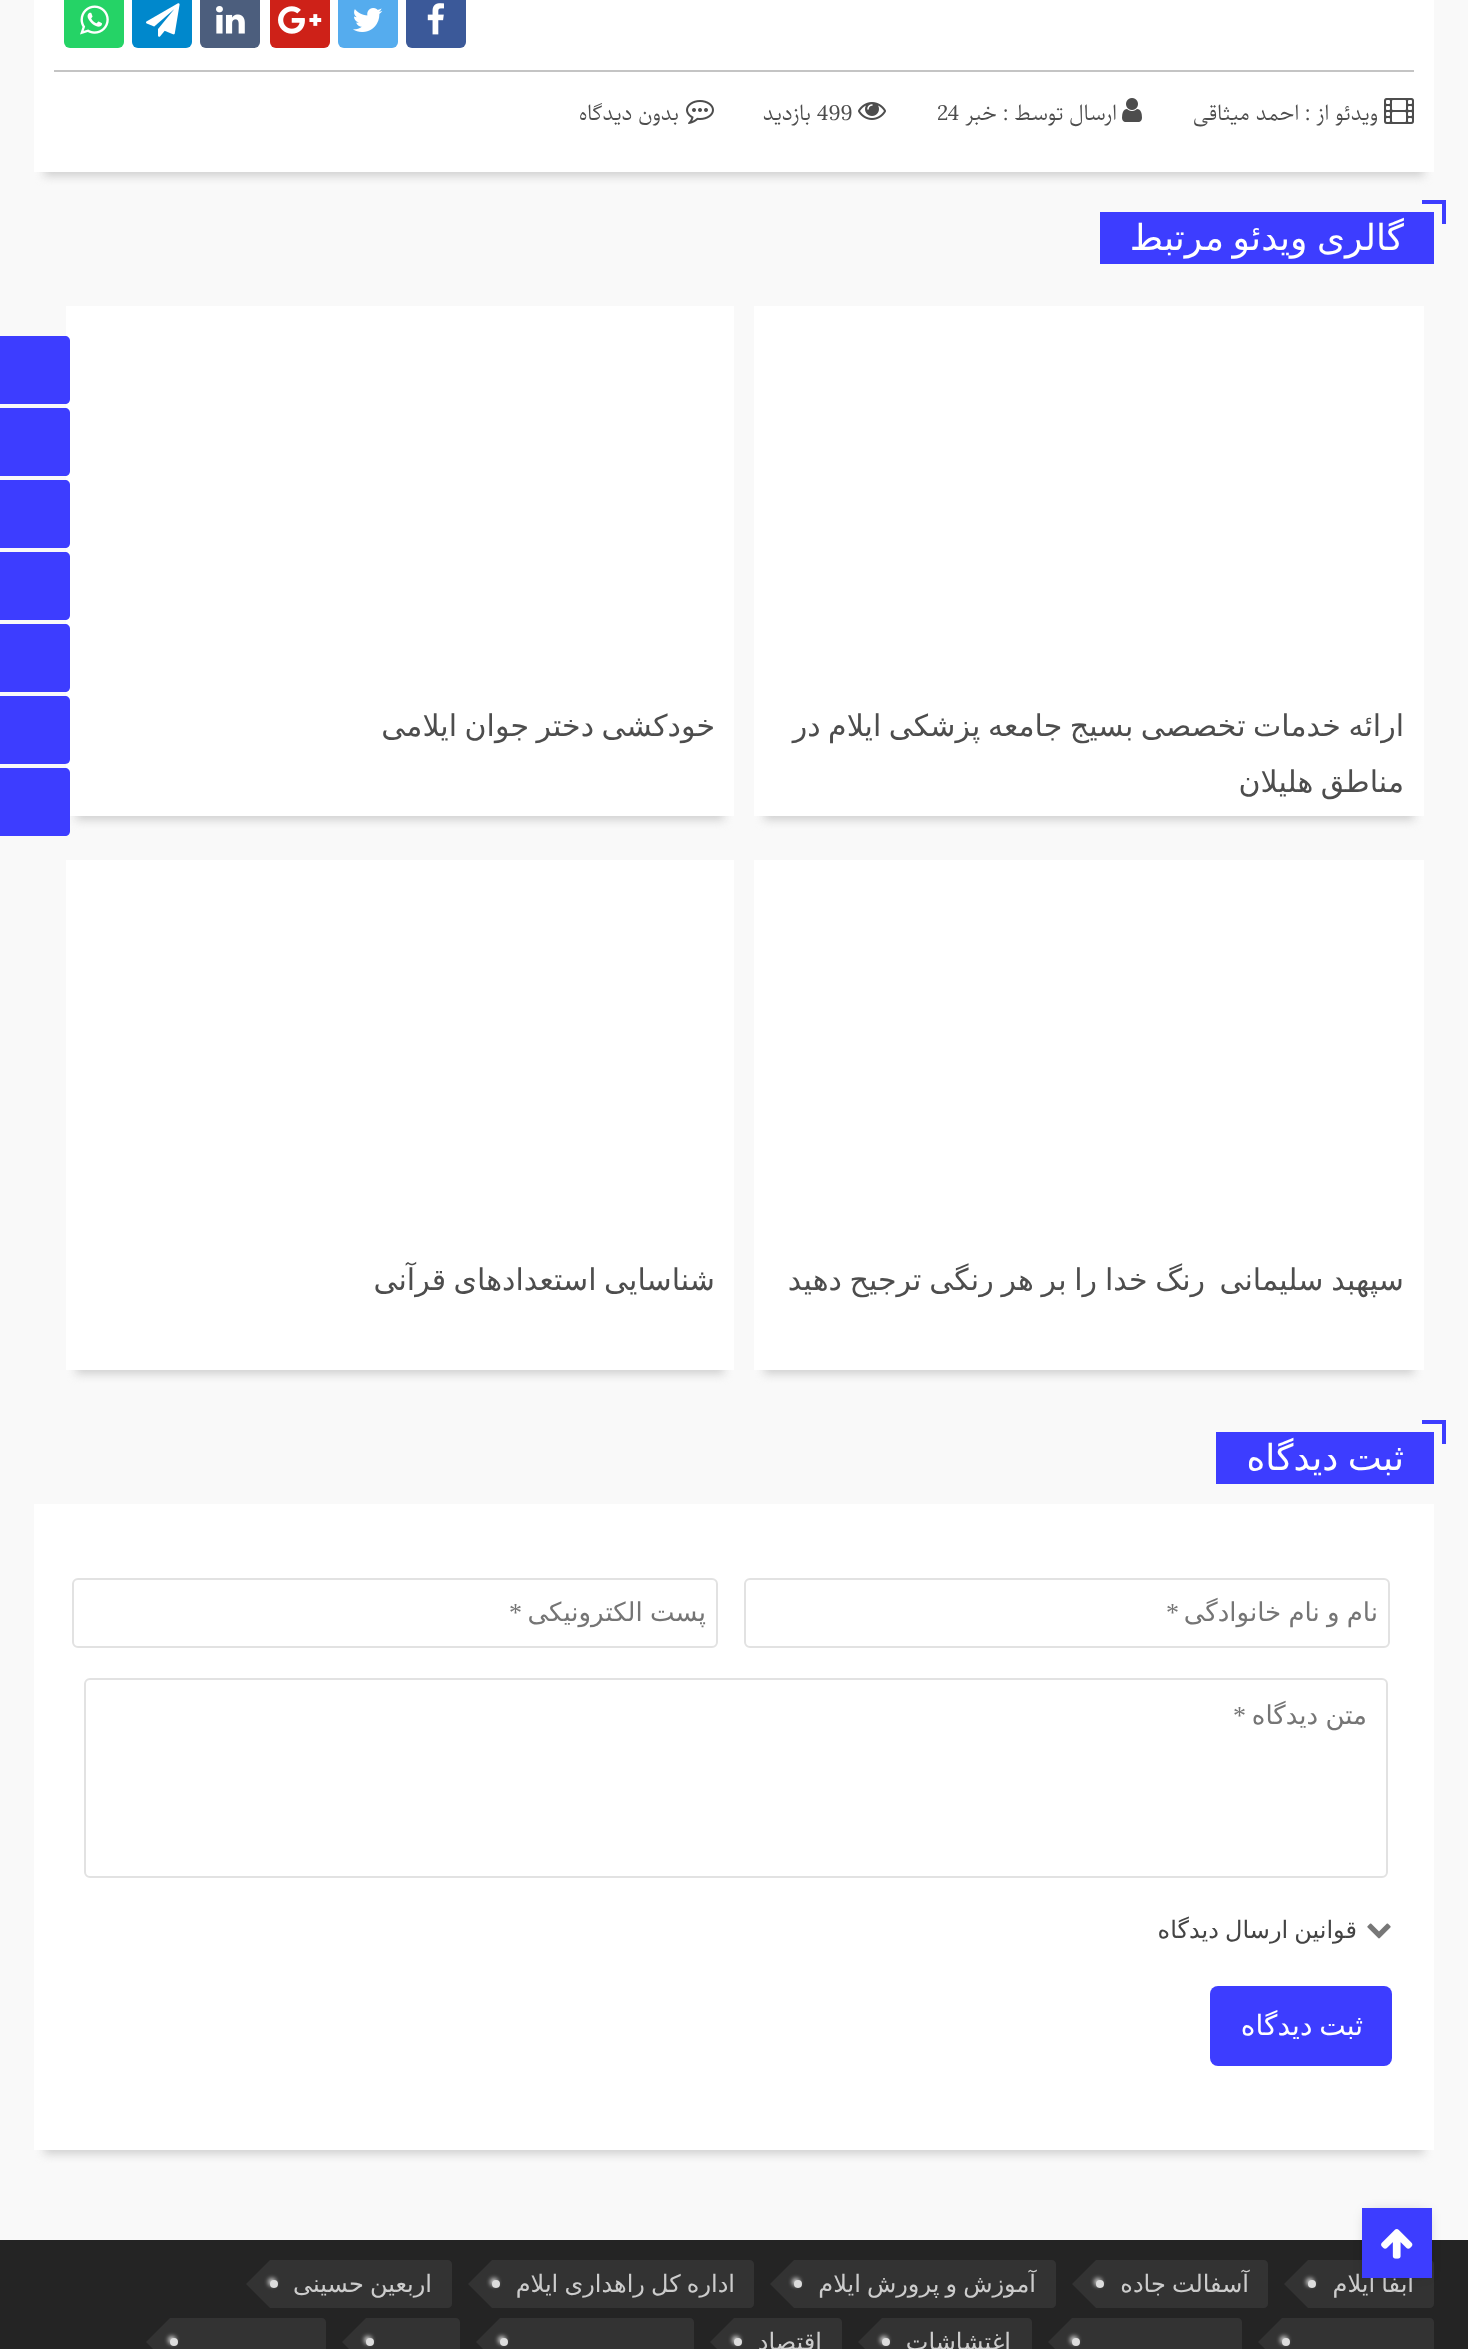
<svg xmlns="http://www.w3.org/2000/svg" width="1468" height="2349">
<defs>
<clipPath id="clip1"><rect x="756" y="1596" width="622" height="32"/></clipPath>
</defs>
<rect width="100%" height="100%" fill="#f9f9f9"/>
<rect x="44" y="-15" width="1380" height="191" fill="#cfcfcf" filter="blur(5px)"/>
<rect x="34" width="1400" height="172" fill="#fff"/>
<rect x="54" y="70" width="1360" height="2" fill="#c4c4c4"/>
<rect x="406" y="-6" width="60" height="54" rx="6" fill="#3b5999"/>
<image x="427" y="3" width="17" height="32" href="media/1.png"/>
<rect x="338" y="-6" width="60" height="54" rx="6" fill="#55acee"/>
<image x="353" y="8" width="30" height="24" href="media/2.png"/>
<rect x="270" y="-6" width="60" height="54" rx="6" fill="#ce2118"/>
<image x="278" y="6" width="44" height="28" href="media/3.png"/>
<rect x="200" y="-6" width="60" height="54" rx="6" fill="#4c5e7d"/>
<image x="216" y="6" width="29" height="28" href="media/4.png"/>
<rect x="132" y="-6" width="60" height="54" rx="6" fill="#08c"/>
<image x="146" y="3" width="34" height="34" href="media/5.png"/>
<rect x="64" y="-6" width="60" height="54" rx="6" fill="#25d366"/>
<image x="80" y="5" width="29" height="30" href="media/6.png"/>
<image x="1384" y="98" width="30" height="26" href="media/7.png"/>
<text x="1378" y="120" style="font-family:Parastoo;font-size:28px;direction:rtl;fill:#4d4d4d">ویدئو از : احمد میثاقی</text>
<image x="1122" y="98" width="20" height="24" href="media/8.png"/>
<text x="1117" y="120" style="font-family:Parastoo;font-size:28px;direction:rtl;fill:#4d4d4d">ارسال توسط :</text>
<text x="997" y="120" style="font-family:Parastoo;font-size:28px;direction:rtl;fill:#4d4d4d">خبر</text>
<text x="937" y="120" style="font-family:Parastoo;font-size:28px;fill:#4d4d4d">24</text>
<image x="858" y="102" width="28" height="18" href="media/9.png"/>
<text x="817" y="120" style="font-family:Parastoo;font-size:28px;fill:#4d4d4d">499</text>
<text x="811" y="120" style="font-family:Parastoo;font-size:28px;direction:rtl;fill:#4d4d4d">بازدید</text>
<image x="686" y="100" width="28" height="24" href="media/10.png"/>
<text x="679" y="120" style="font-family:Parastoo;font-size:28px;direction:rtl;fill:#4d4d4d">بدون دیدگاه</text>
<rect x="1100" y="212" width="334" height="52" fill="#3d3dff"/>
<rect x="1422" y="200" width="24" height="4" fill="#3d3dff"/>
<rect x="1442" y="200" width="4" height="24" fill="#3d3dff"/>
<text x="1404" y="250" word-spacing="-2" style="font-family:DejaVu Sans;font-size:36px;direction:rtl;fill:#fff">گالری ویدئو</text>
<text x="1224" y="250" style="font-family:DejaVu Sans;font-size:36px;direction:rtl;fill:#fff">مرتبط</text>
<rect x="764" y="330" width="650" height="490" fill="#cfcfcf" filter="blur(5px)"/>
<rect x="754" y="306" width="670" height="510" fill="#fff"/>
<text x="1404" y="736" word-spacing="-2" style="font-family:DejaVu Sans;font-size:30px;direction:rtl;fill:#4d4d4d">ارائه خدمات تخصصی بسیج جامعه پزشکی ایلام در</text>
<text x="1404" y="792" word-spacing="-2" style="font-family:DejaVu Sans;font-size:30px;direction:rtl;fill:#4d4d4d">مناطق هلیلان</text>
<rect x="76" y="330" width="648" height="490" fill="#cfcfcf" filter="blur(5px)"/>
<rect x="66" y="306" width="668" height="510" fill="#fff"/>
<text x="715" y="736" word-spacing="-2" style="font-family:DejaVu Sans;font-size:30px;direction:rtl;fill:#4d4d4d">خودکشی دختر جوان ایلامی</text>
<rect x="764" y="884" width="650" height="490" fill="#cfcfcf" filter="blur(5px)"/>
<rect x="754" y="860" width="670" height="510" fill="#fff"/>
<text x="1404" y="1290" word-spacing="-1.75" style="font-family:DejaVu Sans;font-size:30px;direction:rtl;fill:#4d4d4d">سپهبد سلیمانی</text>
<text x="1205" y="1290" word-spacing="-1.75" style="font-family:DejaVu Sans;font-size:30px;direction:rtl;fill:#4d4d4d">رنگ خدا را بر هر رنگی ترجیح دهید</text>
<rect x="76" y="884" width="648" height="490" fill="#cfcfcf" filter="blur(5px)"/>
<rect x="66" y="860" width="668" height="510" fill="#fff"/>
<text x="715" y="1290" word-spacing="-2" style="font-family:DejaVu Sans;font-size:30px;direction:rtl;fill:#4d4d4d">شناسایی استعدادهای قرآنی</text>
<path d="M-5 336h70c3 0 5 2 5 5v58c0 3-2 5-5 5h-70z" fill="#3d3dff"/>
<path d="M-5 408h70c3 0 5 2 5 5v58c0 3-2 5-5 5h-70z" fill="#3d3dff"/>
<path d="M-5 480h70c3 0 5 2 5 5v58c0 3-2 5-5 5h-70z" fill="#3d3dff"/>
<path d="M-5 552h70c3 0 5 2 5 5v58c0 3-2 5-5 5h-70z" fill="#3d3dff"/>
<path d="M-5 624h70c3 0 5 2 5 5v58c0 3-2 5-5 5h-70z" fill="#3d3dff"/>
<path d="M-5 696h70c3 0 5 2 5 5v58c0 3-2 5-5 5h-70z" fill="#3d3dff"/>
<path d="M-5 768h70c3 0 5 2 5 5v58c0 3-2 5-5 5h-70z" fill="#3d3dff"/>
<rect x="1216" y="1432" width="218" height="52" fill="#3d3dff"/>
<rect x="1422" y="1420" width="24" height="4" fill="#3d3dff"/>
<rect x="1442" y="1420" width="4" height="24" fill="#3d3dff"/>
<text x="1404" y="1470" word-spacing="-2" style="font-family:DejaVu Sans;font-size:36px;direction:rtl;fill:#fff">ثبت دیدگاه</text>
<rect x="44" y="1528" width="1380" height="626" fill="#cfcfcf" filter="blur(5px)"/>
<rect x="34" y="1504" width="1400" height="646" fill="#fff"/>
<rect x="745" y="1579" width="644" height="68" rx="5" fill="none" stroke="#e2e2e2" stroke-width="2"/>
<g clip-path="url(#clip1)">
<text x="1378" y="1621" word-spacing="-1" style="font-family:DejaVu Sans;font-size:26px;direction:rtl;fill:#757575">نام و نام خانوادگی</text>
</g>
<text x="1179" y="1621" style="font-family:Liberation Serif;font-size:26px;direction:rtl;fill:#757575">*</text>
<rect x="73" y="1579" width="644" height="68" rx="5" fill="none" stroke="#e2e2e2" stroke-width="2"/>
<text x="706" y="1621" word-spacing="-1" style="font-family:DejaVu Sans;font-size:26px;direction:rtl;fill:#757575">پست الکترونیکی</text>
<text x="522" y="1621" style="font-family:Liberation Serif;font-size:26px;direction:rtl;fill:#757575">*</text>
<rect x="85" y="1679" width="1302" height="198" rx="5" fill="none" stroke="#e2e2e2" stroke-width="2"/>
<text x="1367" y="1724" word-spacing="-1" style="font-family:DejaVu Sans;font-size:26px;direction:rtl;fill:#757575">متن دیدگاه</text>
<text x="1246" y="1724" style="font-family:Liberation Serif;font-size:26px;direction:rtl;fill:#757575">*</text>
<image x="1367" y="1923" width="24" height="16" href="media/11.png"/>
<text x="1357" y="1938" word-spacing="-1.5" style="font-family:DejaVu Sans;font-size:24px;direction:rtl;fill:#444">قوانین ارسال دیدگاه</text>
<rect x="1210" y="1986" width="182" height="80" rx="8" fill="#3d3dff"/>
<text x="1363" y="2035" word-spacing="-2" style="font-family:DejaVu Sans;font-size:28px;direction:rtl;fill:#fff">ثبت دیدگاه</text>
<rect y="2240" width="1468" height="109" fill="#242424"/>
<path d="M1308 2260h122c2 0 4 2 4 4v40c0 2-2 4-4 4h-122z" fill="#333"/>
<text x="1414" y="2292" word-spacing="-1.5" style="font-family:DejaVu Sans;font-size:24px;direction:rtl;fill:#ccc">آبفا ایلام</text>
<path d="M1308 2260v48l-24-24z" fill="#333"/>
<rect x="1306" y="2278" width="8" height="8" rx="4" fill="#ccc" filter="blur(2px)"/>
<circle cx="1312" cy="2284" r="4" fill="#ddd"/>
<path d="M1096 2260h168c2 0 4 2 4 4v40c0 2-2 4-4 4h-168z" fill="#333"/>
<text x="1249" y="2292" word-spacing="-1.5" style="font-family:DejaVu Sans;font-size:24px;direction:rtl;fill:#ccc">آسفالت جاده</text>
<path d="M1096 2260v48l-24-24z" fill="#333"/>
<rect x="1094" y="2278" width="8" height="8" rx="4" fill="#ccc" filter="blur(2px)"/>
<circle cx="1100" cy="2284" r="4" fill="#ddd"/>
<path d="M794 2260h258c2 0 4 2 4 4v40c0 2-2 4-4 4h-258z" fill="#333"/>
<text x="1036" y="2292" word-spacing="-1.5" style="font-family:DejaVu Sans;font-size:24px;direction:rtl;fill:#ccc">آموزش و پرورش ایلام</text>
<path d="M794 2260v48l-24-24z" fill="#333"/>
<rect x="792" y="2278" width="8" height="8" rx="4" fill="#ccc" filter="blur(2px)"/>
<circle cx="798" cy="2284" r="4" fill="#ddd"/>
<path d="M492 2260h258c2 0 4 2 4 4v40c0 2-2 4-4 4h-258z" fill="#333"/>
<text x="735" y="2292" word-spacing="-1.5" style="font-family:DejaVu Sans;font-size:24px;direction:rtl;fill:#ccc">اداره کل راهداری ایلام</text>
<path d="M492 2260v48l-24-24z" fill="#333"/>
<rect x="490" y="2278" width="8" height="8" rx="4" fill="#ccc" filter="blur(2px)"/>
<circle cx="496" cy="2284" r="4" fill="#ddd"/>
<path d="M270 2260h178c2 0 4 2 4 4v40c0 2-2 4-4 4h-178z" fill="#333"/>
<text x="432" y="2292" word-spacing="-1.5" style="font-family:DejaVu Sans;font-size:24px;direction:rtl;fill:#ccc">اربعین حسینی</text>
<path d="M270 2260v48l-24-24z" fill="#333"/>
<rect x="268" y="2278" width="8" height="8" rx="4" fill="#ccc" filter="blur(2px)"/>
<circle cx="274" cy="2284" r="4" fill="#ddd"/>
<path d="M1282 2318h148c2 0 4 2 4 4v27c0 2-2 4-4 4h-148z" fill="#333"/>
<path d="M1282 2318v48l-24-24z" fill="#333"/>
<rect x="1280" y="2336" width="8" height="8" rx="4" fill="#ccc" filter="blur(2px)"/>
<circle cx="1286" cy="2342" r="4" fill="#ddd"/>
<path d="M1072 2318h166c2 0 4 2 4 4v27c0 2-2 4-4 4h-166z" fill="#333"/>
<path d="M1072 2318v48l-24-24z" fill="#333"/>
<rect x="1070" y="2336" width="8" height="8" rx="4" fill="#ccc" filter="blur(2px)"/>
<circle cx="1076" cy="2342" r="4" fill="#ddd"/>
<path d="M882 2318h146c2 0 4 2 4 4v27c0 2-2 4-4 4h-146z" fill="#333"/>
<text x="1011" y="2350" style="font-family:DejaVu Sans;font-size:24px;direction:rtl;fill:#ccc">اغتشاشات</text>
<path d="M882 2318v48l-24-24z" fill="#333"/>
<rect x="880" y="2336" width="8" height="8" rx="4" fill="#ccc" filter="blur(2px)"/>
<circle cx="886" cy="2342" r="4" fill="#ddd"/>
<path d="M734 2318h104c2 0 4 2 4 4v27c0 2-2 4-4 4h-104z" fill="#333"/>
<text x="822" y="2350" style="font-family:DejaVu Sans;font-size:24px;direction:rtl;fill:#ccc">اقتصاد</text>
<path d="M734 2318v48l-24-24z" fill="#333"/>
<rect x="732" y="2336" width="8" height="8" rx="4" fill="#ccc" filter="blur(2px)"/>
<circle cx="738" cy="2342" r="4" fill="#ddd"/>
<path d="M500 2318h190c2 0 4 2 4 4v27c0 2-2 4-4 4h-190z" fill="#333"/>
<path d="M500 2318v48l-24-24z" fill="#333"/>
<rect x="498" y="2336" width="8" height="8" rx="4" fill="#ccc" filter="blur(2px)"/>
<circle cx="504" cy="2342" r="4" fill="#ddd"/>
<path d="M366 2318h90c2 0 4 2 4 4v27c0 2-2 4-4 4h-90z" fill="#333"/>
<path d="M366 2318v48l-24-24z" fill="#333"/>
<rect x="364" y="2336" width="8" height="8" rx="4" fill="#ccc" filter="blur(2px)"/>
<circle cx="370" cy="2342" r="4" fill="#ddd"/>
<path d="M170 2318h152c2 0 4 2 4 4v27c0 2-2 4-4 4h-152z" fill="#333"/>
<path d="M170 2318v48l-24-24z" fill="#333"/>
<rect x="168" y="2336" width="8" height="8" rx="4" fill="#ccc" filter="blur(2px)"/>
<circle cx="174" cy="2342" r="4" fill="#ddd"/>
<rect x="1368" y="2214" width="58" height="58" fill="#0000004d" filter="blur(7px)"/>
<rect x="1362" y="2208" width="70" height="70" fill="#3d3dff"/>
<image x="1381" y="2229" width="32" height="30" href="media/12.png"/>
</svg>
